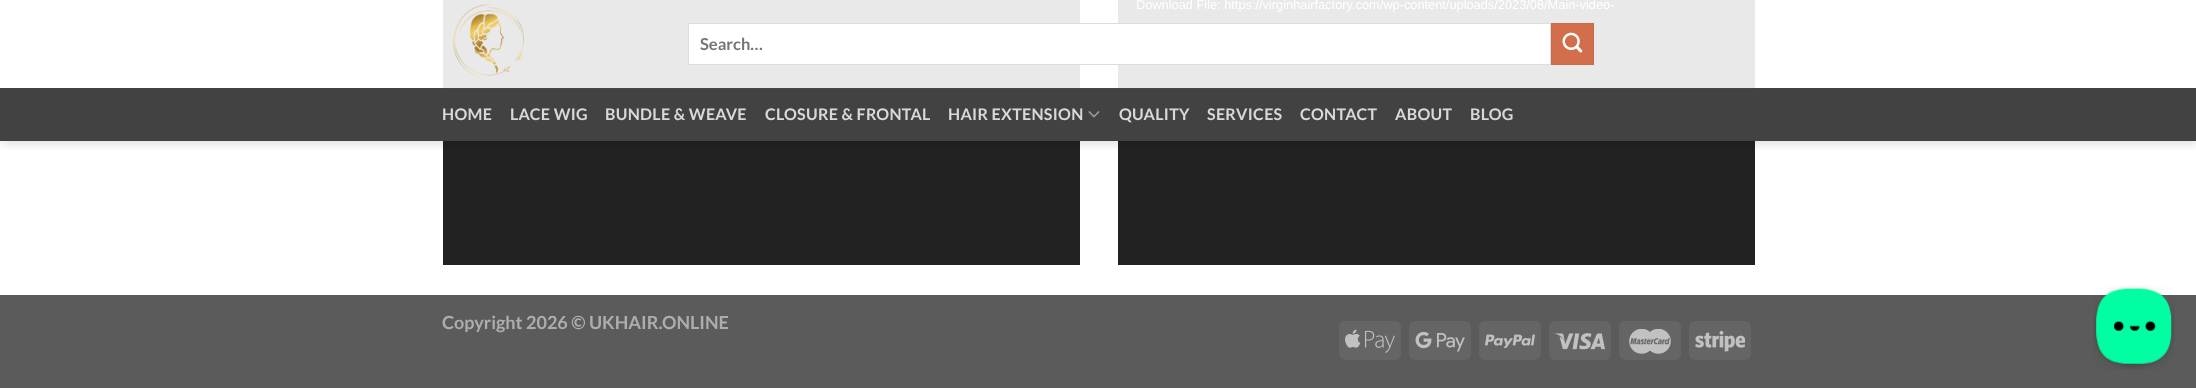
<svg xmlns="http://www.w3.org/2000/svg" width="2196" height="388">
<defs>
<clipPath id="clip1"><rect x="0" y="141" width="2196" height="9"/></clipPath>
</defs>
<rect width="100%" height="100%" fill="#fff"/>
<rect x="443" y="141" width="637" height="124" fill="#222"/>
<rect x="443" width="637" height="88" fill="#e9e9e9"/>
<rect x="1118" y="141" width="637" height="124" fill="#222"/>
<rect x="1118" width="637" height="88" fill="#e9e9e9"/>
<text x="1136" y="9" style="font-family:Liberation Sans;font-size:12.8px;fill:#fff">Download File: https://virginhairfactory.com/wp-content/uploads/2023/08/Main-video-</text>
<rect y="295" width="2196" height="93" fill="#5b5b5b"/>
<text x="442" y="329" style="font-family:Lato;font-size:18px;font-weight:bold;fill:#adadad">Copyright 2026 © UKHAIR.ONLINE</text>
<rect x="1339" y="321" width="62" height="39" rx="6" fill="#656565"/>
<image x="1345" y="329" width="50" height="24" href="media/1.png"/>
<rect x="1409" y="321" width="62" height="39" rx="6" fill="#656565"/>
<image x="1415" y="331" width="50" height="21" href="media/2.png"/>
<rect x="1479" y="321" width="62" height="39" rx="6" fill="#656565"/>
<image x="1485" y="334" width="50" height="14" href="media/3.png"/>
<rect x="1549" y="321" width="62" height="39" rx="6" fill="#656565"/>
<image x="1555" y="333" width="50" height="17" href="media/4.png"/>
<rect x="1619" y="321" width="62" height="39" rx="6" fill="#656565"/>
<image x="1629" y="329" width="42" height="25" href="media/5.png"/>
<rect x="1689" y="321" width="62" height="39" rx="6" fill="#656565"/>
<image x="1695" y="330" width="50" height="22" href="media/6.png"/>
<circle cx="2144.5" cy="339.5" r="23" fill="none" stroke="#777" stroke-width="3"/>
<g clip-path="url(#clip1)">
<rect x="1" y="1" width="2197" height="142" fill="#00000026" filter="blur(6px)"/>
</g>
<image x="453" y="4" width="71" height="73" href="media/7.png"/>
<rect x="688.5" y="23.5" width="862" height="41" fill="#fff" stroke="#ddd"/>
<text x="700" y="50" style="font-family:Lato;font-size:16.5px;font-weight:bold;fill:#757575">Search…</text>
<rect x="1551.5" y="23.5" width="42" height="41" fill="#d26e4b" stroke="#c86947"/>
<image x="1562" y="32" width="21" height="21" href="media/8.png"/>
<rect y="88" width="2196" height="53" fill="#424242"/>
<rect x="443" y="88" width="1312" height="1" fill="#474747"/>
<text x="442" y="120" style="font-family:Lato;font-size:16px;font-weight:bold;letter-spacing:0.3px;fill:#d9d9d9">HOME</text>
<text x="510" y="120" style="font-family:Lato;font-size:16px;font-weight:bold;letter-spacing:0.3px;fill:#d9d9d9">LACE WIG</text>
<text x="605" y="120" style="font-family:Lato;font-size:16px;font-weight:bold;letter-spacing:0.3px;fill:#d9d9d9">BUNDLE &amp; WEAVE</text>
<text x="765" y="120" style="font-family:Lato;font-size:16px;font-weight:bold;letter-spacing:0.3px;fill:#d9d9d9">CLOSURE &amp; FRONTAL</text>
<text x="948" y="120" style="font-family:Lato;font-size:16px;font-weight:bold;letter-spacing:0.3px;fill:#d9d9d9">HAIR EXTENSION</text>
<image x="1088" y="111" width="12" height="7" href="media/9.png"/>
<text x="1119" y="120" style="font-family:Lato;font-size:16px;font-weight:bold;letter-spacing:0.3px;fill:#d9d9d9">QUALITY</text>
<text x="1207" y="120" style="font-family:Lato;font-size:16px;font-weight:bold;letter-spacing:0.3px;fill:#d9d9d9">SERVICES</text>
<text x="1300" y="120" style="font-family:Lato;font-size:16px;font-weight:bold;letter-spacing:0.3px;fill:#d9d9d9">CONTACT</text>
<text x="1395" y="120" style="font-family:Lato;font-size:16px;font-weight:bold;letter-spacing:0.3px;fill:#d9d9d9">ABOUT</text>
<text x="1470" y="120" style="font-family:Lato;font-size:16px;font-weight:bold;letter-spacing:0.3px;fill:#d9d9d9">BLOG</text>
<image x="2093" y="285" width="82" height="85" href="media/10.png"/>
</svg>
